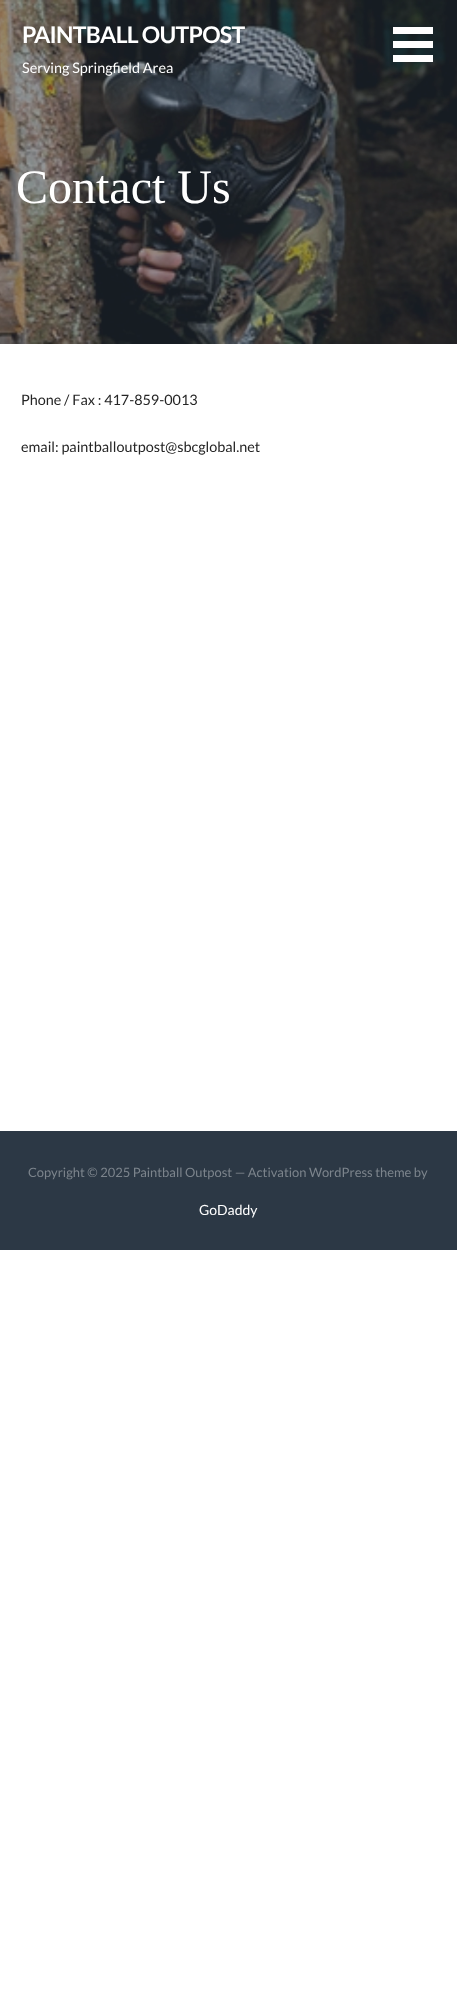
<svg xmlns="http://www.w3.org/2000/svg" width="457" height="2015">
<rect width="100%" height="100%" fill="#fff"/>
<image x="0" y="0" width="457" height="344" href="media/1.png"/>
<text x="22" y="43" style="font-family:Lato;font-size:23px;font-weight:bold;letter-spacing:-0.7px;fill:#fff">PAINTBALL OUTPOST</text>
<text x="22" y="73" style="font-family:Lato;font-size:14.4px;fill:#fff">Serving Springfield Area</text>
<text x="16" y="203" style="font-family:Liberation Serif;font-size:48px;fill:#fff">Contact Us</text>
<rect x="393" y="27" width="40" height="7" fill="#fff"/>
<rect x="393" y="41" width="40" height="7" fill="#fff"/>
<rect x="393" y="55" width="40" height="7" fill="#fff"/>
<text x="21" y="405" style="font-family:Lato;font-size:14.4px;fill:#252525">Phone / Fax : 417-859-0013</text>
<text x="21" y="452" style="font-family:Lato;font-size:14.4px;fill:#252525">email: paintballoutpost@sbcglobal.net</text>
<rect y="1131" width="457" height="119" fill="#2c3845"/>
<text x="28" y="1177" style="font-family:Lato;font-size:12.95px;fill:#7c848c">Copyright © 2025 Paintball Outpost — Activation WordPress theme by</text>
<text x="199" y="1215" style="font-family:Lato;font-size:14px;fill:#fff">GoDaddy</text>
</svg>
